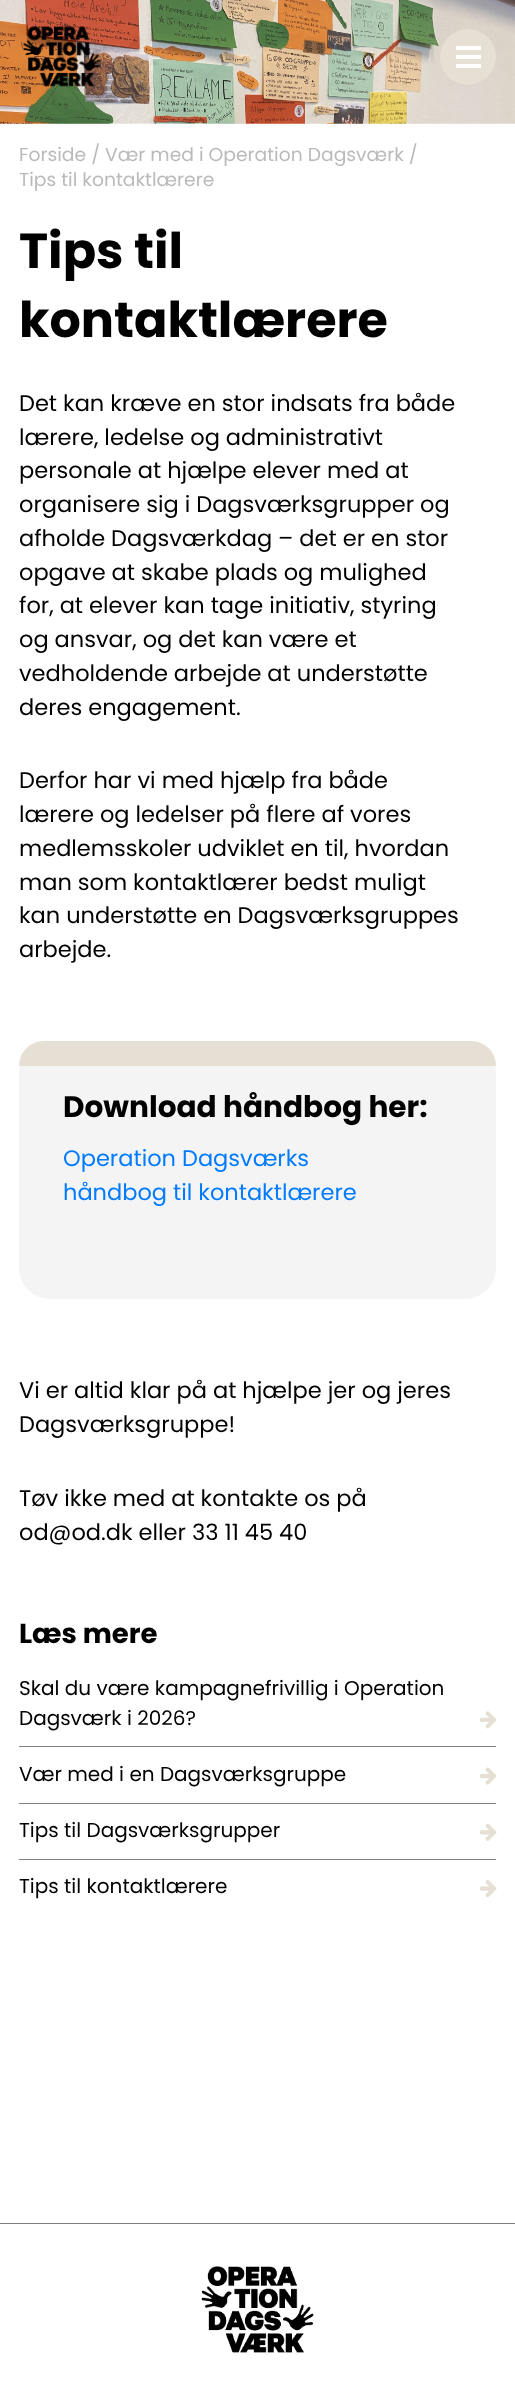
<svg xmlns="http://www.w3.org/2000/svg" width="515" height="2385">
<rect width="100%" height="100%" fill="#fff"/>
<image x="0" y="0" width="515" height="124" href="media/1.png"/>
<image x="22" y="26" width="80" height="61" href="media/2.png"/>
<circle cx="468" cy="57" r="28" fill="#e6e0d4"/>
<rect x="456" y="55" width="25" height="4" fill="#fff"/>
<rect x="456" y="46" width="25" height="4" fill="#fff"/>
<rect x="456" y="64" width="25" height="4" fill="#fff"/>
<text x="19" y="161" style="font-family:Poppins;font-size:18.75px;fill:#bababa">Forside / Vær med i Operation Dagsværk /</text>
<text x="19" y="186" style="font-family:Poppins;font-size:18.75px;fill:#bababa">Tips til kontaktlærere</text>
<text x="19" y="268" style="font-family:Poppins;font-size:49.25px;font-weight:bold;fill:#000">Tips til</text>
<text x="19" y="337" style="font-family:Poppins;font-size:49.25px;font-weight:bold;fill:#000">kontaktlærere</text>
<text x="19" y="411" style="font-family:Poppins;font-size:22.5px;fill:#000">Det kan kræve en stor indsats fra både</text>
<text x="19" y="445" style="font-family:Poppins;font-size:22.5px;fill:#000">lærere, ledelse og administrativt</text>
<text x="19" y="478" style="font-family:Poppins;font-size:22.5px;fill:#000">personale at hjælpe elever med at</text>
<text x="19" y="512" style="font-family:Poppins;font-size:22.5px;fill:#000">organisere sig i Dagsværksgrupper og</text>
<text x="19" y="546" style="font-family:Poppins;font-size:22.5px;fill:#000">afholde Dagsværkdag – det er en stor</text>
<text x="19" y="580" style="font-family:Poppins;font-size:22.5px;fill:#000">opgave at skabe plads og mulighed</text>
<text x="19" y="613" style="font-family:Poppins;font-size:22.5px;fill:#000">for, at elever kan tage initiativ, styring</text>
<text x="19" y="647" style="font-family:Poppins;font-size:22.5px;fill:#000">og ansvar, og det kan være et</text>
<text x="19" y="681" style="font-family:Poppins;font-size:22.5px;fill:#000">vedholdende arbejde at understøtte</text>
<text x="19" y="715" style="font-family:Poppins;font-size:22.5px;fill:#000">deres engagement.</text>
<text x="19" y="788" style="font-family:Poppins;font-size:22.5px;fill:#000">Derfor har vi med hjælp fra både</text>
<text x="19" y="822" style="font-family:Poppins;font-size:22.5px;fill:#000">lærere og ledelser på flere af vores</text>
<text x="19" y="856" style="font-family:Poppins;font-size:22.5px;fill:#000">medlemsskoler udviklet en til, hvordan</text>
<text x="19" y="890" style="font-family:Poppins;font-size:22.5px;fill:#000">man som kontaktlærer bedst muligt</text>
<text x="19" y="923" style="font-family:Poppins;font-size:22.5px;fill:#000">kan understøtte en Dagsværksgruppes</text>
<text x="19" y="957" style="font-family:Poppins;font-size:22.5px;fill:#000">arbejde.</text>
<rect x="19" y="1041" width="477" height="258" rx="31" fill="#f4f4f4"/>
<path d="M44 1041h427c14 0 25 11 25 25h-477c0-14 11-25 25-25z" fill="#e6e0d4"/>
<text x="63" y="1117" style="font-family:Poppins;font-size:29.6px;font-weight:bold;fill:#000">Download håndbog her:</text>
<text x="63" y="1166" style="font-family:Poppins;font-size:22.5px;fill:#007bff">Operation Dagsværks</text>
<text x="63" y="1200" style="font-family:Poppins;font-size:22.5px;fill:#007bff">håndbog til kontaktlærere</text>
<text x="19" y="1398" style="font-family:Poppins;font-size:22.5px;fill:#000">Vi er altid klar på at hjælpe jer og jeres</text>
<text x="19" y="1432" style="font-family:Poppins;font-size:22.5px;fill:#000">Dagsværksgruppe!</text>
<text x="19" y="1506" style="font-family:Poppins;font-size:22.5px;fill:#000">Tøv ikke med at kontakte os på</text>
<text x="19" y="1540" style="font-family:Poppins;font-size:22.5px;fill:#000">od@od.dk eller 33 11 45 40</text>
<text x="19" y="1643" style="font-family:Poppins;font-size:27.5px;font-weight:bold;fill:#000">Læs mere</text>
<rect x="19" y="1746" width="477" height="1" fill="#808080"/>
<text x="19" y="1695" style="font-family:Poppins;font-size:20px;fill:#000">Skal du være kampagnefrivillig i Operation</text>
<text x="19" y="1725" style="font-family:Poppins;font-size:20px;fill:#000">Dagsværk i 2026?</text>
<image x="480" y="1711" width="17" height="18" href="media/3.png"/>
<rect x="19" y="1803" width="477" height="1" fill="#808080"/>
<text x="19" y="1781" style="font-family:Poppins;font-size:20px;fill:#000">Vær med i en Dagsværksgruppe</text>
<image x="480" y="1767" width="17" height="18" href="media/4.png"/>
<rect x="19" y="1859" width="477" height="1" fill="#808080"/>
<text x="19" y="1837" style="font-family:Poppins;font-size:20px;fill:#000">Tips til Dagsværksgrupper</text>
<image x="480" y="1823" width="17" height="18" href="media/5.png"/>
<text x="19" y="1893" style="font-family:Poppins;font-size:20px;fill:#000">Tips til kontaktlærere</text>
<image x="480" y="1880" width="17" height="18" href="media/6.png"/>
<rect y="2223" width="515" height="1" fill="#808080"/>
<image x="201" y="2266" width="113" height="87" href="media/7.png"/>
</svg>
